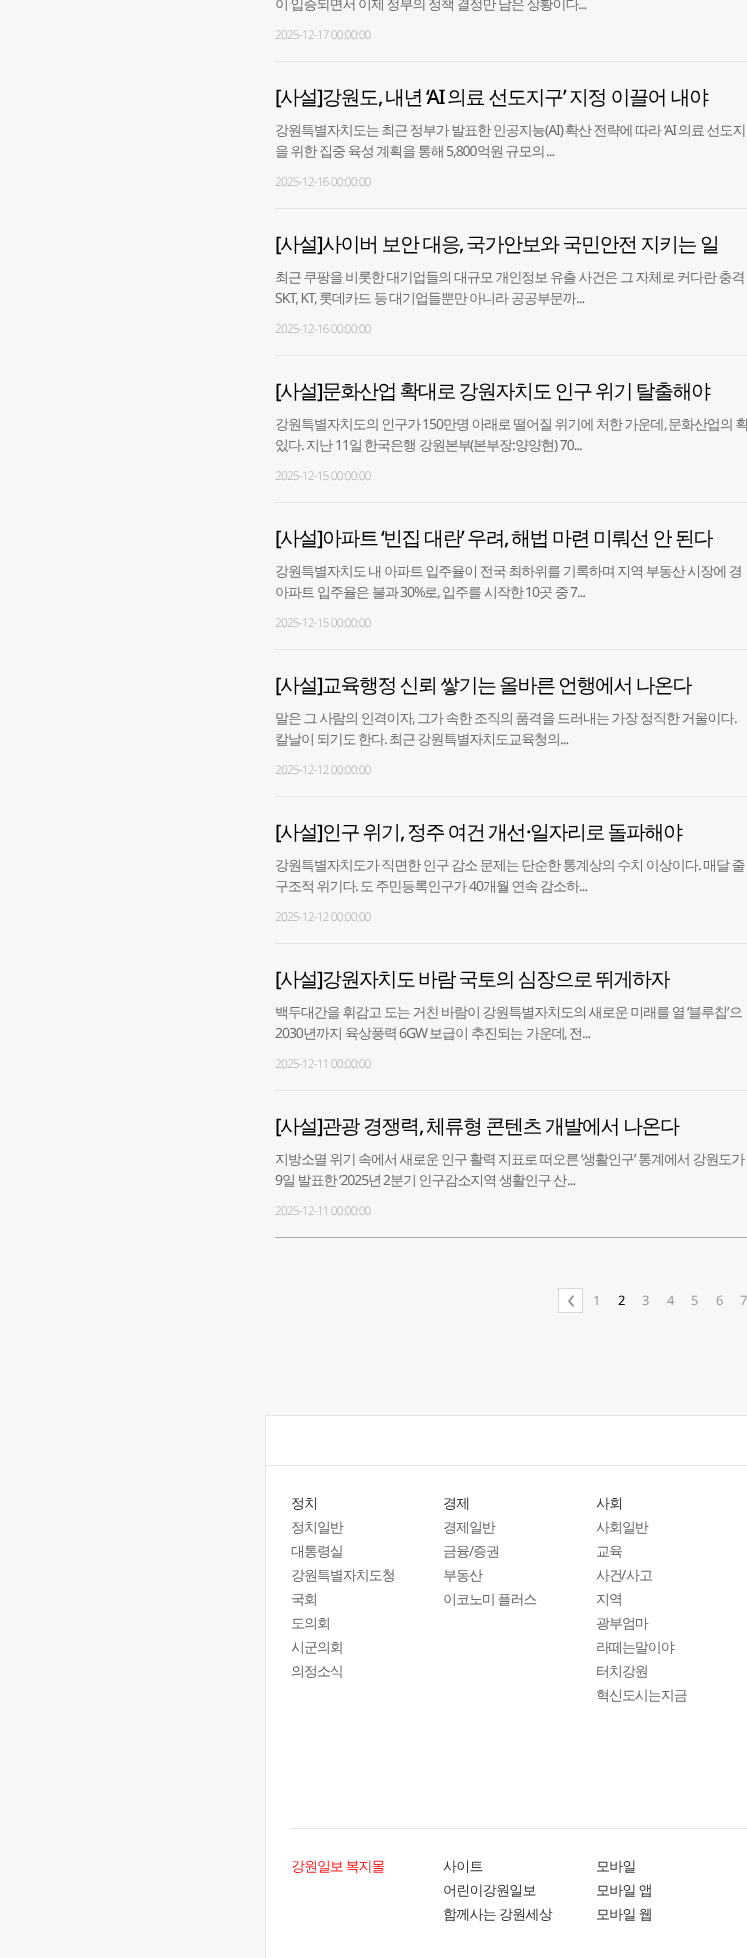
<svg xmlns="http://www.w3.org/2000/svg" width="747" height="1958">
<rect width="100%" height="100%" fill="#f7f7f7"/>
<rect x="275" y="61" width="472" height="1" fill="#e5e5e5"/>
<text x="275" y="9" word-spacing="-0.5" style="font-family:WenQuanYi Zen Hei;font-size:14px;font-weight:500;letter-spacing:-1.05px;fill:#6c6c6c">이 입증되면서 이제 정부의 정책 결정만 남은 상황이다</text>
<text x="578" y="9" style="font-family:Noto Sans;font-size:14px;letter-spacing:-1.05px;fill:#6c6c6c">...</text>
<text x="275" y="39" style="font-family:Noto Sans;font-size:12px;font-weight:300;letter-spacing:-0.9px;fill:#b1b1b1">2025-12-17 00:00:00</text>
<rect x="275" y="208" width="472" height="1" fill="#e5e5e5"/>
<text x="275" y="104" style="font-family:Noto Sans;font-size:20px;font-weight:500;letter-spacing:-1.5px;fill:#000">[</text>
<text x="280" y="104" style="font-family:WenQuanYi Zen Hei;font-size:20px;font-weight:500;letter-spacing:-1.5px;fill:#000">사설</text>
<text x="317" y="104" style="font-family:Noto Sans;font-size:20px;font-weight:500;letter-spacing:-1.5px;fill:#000">]</text>
<text x="322" y="104" style="font-family:WenQuanYi Zen Hei;font-size:20px;font-weight:500;letter-spacing:-1.5px;fill:#000">강원도</text>
<text x="378" y="104" style="font-family:Noto Sans;font-size:20px;font-weight:500;letter-spacing:-1.5px;fill:#000">,</text>
<text x="385" y="104" style="font-family:WenQuanYi Zen Hei;font-size:20px;font-weight:500;letter-spacing:-1.5px;fill:#000">내년</text>
<text x="426" y="104" style="font-family:Noto Sans;font-size:20px;font-weight:500;letter-spacing:-1.5px;fill:#000">‘AI</text>
<text x="447" y="104" style="font-family:WenQuanYi Zen Hei;font-size:20px;font-weight:500;letter-spacing:-1.5px;fill:#000">의료 선도지구</text>
<text x="563" y="104" style="font-family:Noto Sans;font-size:20px;font-weight:500;letter-spacing:-1.5px;fill:#000">’</text>
<text x="569" y="104" style="font-family:WenQuanYi Zen Hei;font-size:20px;font-weight:500;letter-spacing:-1.5px;fill:#000">지정 이끌어 내야</text>
<text x="275" y="135" word-spacing="-0.5" style="font-family:WenQuanYi Zen Hei;font-size:14px;font-weight:500;letter-spacing:-1.05px;fill:#6c6c6c">강원특별자치도는 최근 정부가 발표한 인공지능</text>
<text x="545" y="135" style="font-family:Noto Sans;font-size:14px;letter-spacing:-1.05px;fill:#6c6c6c">(AI)</text>
<text x="565" y="135" word-spacing="-0.5" style="font-family:WenQuanYi Zen Hei;font-size:14px;font-weight:500;letter-spacing:-1.05px;fill:#6c6c6c">확산 전략에 따라</text>
<text x="664" y="135" style="font-family:Noto Sans;font-size:14px;letter-spacing:-1.05px;fill:#6c6c6c">‘AI</text>
<text x="678" y="135" word-spacing="-0.5" style="font-family:WenQuanYi Zen Hei;font-size:14px;font-weight:500;letter-spacing:-1.05px;fill:#6c6c6c">의료 선도지</text>
<text x="275" y="156" word-spacing="-0.5" style="font-family:WenQuanYi Zen Hei;font-size:14px;font-weight:500;letter-spacing:-1.05px;fill:#6c6c6c">을 위한 집중 육성 계획을 통해</text>
<text x="446" y="156" style="font-family:Noto Sans;font-size:14px;letter-spacing:-1.05px;fill:#6c6c6c">5,800</text>
<text x="477" y="156" word-spacing="-0.5" style="font-family:WenQuanYi Zen Hei;font-size:14px;font-weight:500;letter-spacing:-1.05px;fill:#6c6c6c">억원 규모의</text>
<text x="546" y="156" style="font-family:Noto Sans;font-size:14px;letter-spacing:-1.05px;fill:#6c6c6c">...</text>
<text x="275" y="186" style="font-family:Noto Sans;font-size:12px;font-weight:300;letter-spacing:-0.9px;fill:#b1b1b1">2025-12-16 00:00:00</text>
<rect x="275" y="355" width="472" height="1" fill="#e5e5e5"/>
<text x="275" y="251" style="font-family:Noto Sans;font-size:20px;font-weight:500;letter-spacing:-1.5px;fill:#000">[</text>
<text x="280" y="251" style="font-family:WenQuanYi Zen Hei;font-size:20px;font-weight:500;letter-spacing:-1.5px;fill:#000">사설</text>
<text x="317" y="251" style="font-family:Noto Sans;font-size:20px;font-weight:500;letter-spacing:-1.5px;fill:#000">]</text>
<text x="322" y="251" word-spacing="-0.5" style="font-family:WenQuanYi Zen Hei;font-size:20px;font-weight:500;letter-spacing:-1.5px;fill:#000">사이버 보안 대응</text>
<text x="459" y="251" style="font-family:Noto Sans;font-size:20px;font-weight:500;letter-spacing:-1.5px;fill:#000">,</text>
<text x="466" y="251" word-spacing="-0.5" style="font-family:WenQuanYi Zen Hei;font-size:20px;font-weight:500;letter-spacing:-1.5px;fill:#000">국가안보와 국민안전 지키는 일</text>
<text x="275" y="282" word-spacing="-0.5" style="font-family:WenQuanYi Zen Hei;font-size:14px;font-weight:500;letter-spacing:-1.05px;fill:#6c6c6c">최근 쿠팡을 비롯한 대기업들의 대규모 개인정보 유출 사건은 그 자체로 커다란 충격</text>
<text x="275" y="303" style="font-family:Noto Sans;font-size:14px;letter-spacing:-1.05px;fill:#6c6c6c">SKT, KT,</text>
<text x="319" y="303" style="font-family:WenQuanYi Zen Hei;font-size:14px;font-weight:500;letter-spacing:-1.05px;fill:#6c6c6c">롯데카드</text>
<text x="374" y="303" style="font-family:WenQuanYi Zen Hei;font-size:14px;font-weight:500;letter-spacing:-1.05px;fill:#6c6c6c">등</text>
<text x="389" y="303" style="font-family:WenQuanYi Zen Hei;font-size:14px;font-weight:500;letter-spacing:-1.05px;fill:#6c6c6c">대기업들뿐만</text>
<text x="469" y="303" style="font-family:WenQuanYi Zen Hei;font-size:14px;font-weight:500;letter-spacing:-1.05px;fill:#6c6c6c">아니라</text>
<text x="511" y="303" style="font-family:WenQuanYi Zen Hei;font-size:14px;font-weight:500;letter-spacing:-1.05px;fill:#6c6c6c">공공부문까</text>
<text x="576" y="303" style="font-family:Noto Sans;font-size:14px;letter-spacing:-1.05px;fill:#6c6c6c">...</text>
<text x="275" y="333" style="font-family:Noto Sans;font-size:12px;font-weight:300;letter-spacing:-0.9px;fill:#b1b1b1">2025-12-16 00:00:00</text>
<rect x="275" y="502" width="472" height="1" fill="#e5e5e5"/>
<text x="275" y="398" style="font-family:Noto Sans;font-size:20px;font-weight:500;letter-spacing:-1.5px;fill:#000">[</text>
<text x="280" y="398" style="font-family:WenQuanYi Zen Hei;font-size:20px;font-weight:500;letter-spacing:-1.5px;fill:#000">사설</text>
<text x="317" y="398" style="font-family:Noto Sans;font-size:20px;font-weight:500;letter-spacing:-1.5px;fill:#000">]</text>
<text x="322" y="398" word-spacing="-1" style="font-family:WenQuanYi Zen Hei;font-size:20px;font-weight:500;letter-spacing:-1.5px;fill:#000">문화산업 확대로 강원자치도 인구 위기 탈출해야</text>
<text x="275" y="429" word-spacing="-0.5" style="font-family:WenQuanYi Zen Hei;font-size:14px;font-weight:500;letter-spacing:-1.05px;fill:#6c6c6c">강원특별자치도의 인구가</text>
<text x="422" y="429" style="font-family:Noto Sans;font-size:14px;letter-spacing:-1.05px;fill:#6c6c6c">150</text>
<text x="443" y="429" word-spacing="-0.5" style="font-family:WenQuanYi Zen Hei;font-size:14px;font-weight:500;letter-spacing:-1.05px;fill:#6c6c6c">만명 아래로 떨어질 위기에 처한 가운데</text>
<text x="664" y="429" style="font-family:Noto Sans;font-size:14px;letter-spacing:-1.05px;fill:#6c6c6c">,</text>
<text x="668" y="429" word-spacing="-0.5" style="font-family:WenQuanYi Zen Hei;font-size:14px;font-weight:500;letter-spacing:-1.05px;fill:#6c6c6c">문화산업의 확</text>
<text x="275" y="450" style="font-family:WenQuanYi Zen Hei;font-size:14px;font-weight:500;letter-spacing:-1.05px;fill:#6c6c6c">있다</text>
<text x="301" y="450" style="font-family:Noto Sans;font-size:14px;letter-spacing:-1.05px;fill:#6c6c6c">.</text>
<text x="306" y="450" style="font-family:WenQuanYi Zen Hei;font-size:14px;font-weight:500;letter-spacing:-1.05px;fill:#6c6c6c">지난</text>
<text x="335" y="450" style="font-family:Noto Sans;font-size:14px;letter-spacing:-1.05px;fill:#6c6c6c">11</text>
<text x="349" y="450" style="font-family:WenQuanYi Zen Hei;font-size:14px;font-weight:500;letter-spacing:-1.05px;fill:#6c6c6c">일</text>
<text x="364" y="450" style="font-family:WenQuanYi Zen Hei;font-size:14px;font-weight:500;letter-spacing:-1.05px;fill:#6c6c6c">한국은행</text>
<text x="419" y="450" style="font-family:WenQuanYi Zen Hei;font-size:14px;font-weight:500;letter-spacing:-1.05px;fill:#6c6c6c">강원본부</text>
<text x="470" y="450" style="font-family:Noto Sans;font-size:14px;letter-spacing:-1.05px;fill:#6c6c6c">(</text>
<text x="473" y="450" style="font-family:WenQuanYi Zen Hei;font-size:14px;font-weight:500;letter-spacing:-1.05px;fill:#6c6c6c">본부장</text>
<text x="512" y="450" style="font-family:Noto Sans;font-size:14px;letter-spacing:-1.05px;fill:#6c6c6c">:</text>
<text x="515" y="450" style="font-family:WenQuanYi Zen Hei;font-size:14px;font-weight:500;letter-spacing:-1.05px;fill:#6c6c6c">양양현</text>
<text x="554" y="450" style="font-family:Noto Sans;font-size:14px;letter-spacing:-1.05px;fill:#6c6c6c">) 70...</text>
<text x="275" y="480" style="font-family:Noto Sans;font-size:12px;font-weight:300;letter-spacing:-0.9px;fill:#b1b1b1">2025-12-15 00:00:00</text>
<rect x="275" y="649" width="472" height="1" fill="#e5e5e5"/>
<text x="275" y="545" style="font-family:Noto Sans;font-size:20px;font-weight:500;letter-spacing:-1.5px;fill:#000">[</text>
<text x="280" y="545" style="font-family:WenQuanYi Zen Hei;font-size:20px;font-weight:500;letter-spacing:-1.5px;fill:#000">사설</text>
<text x="317" y="545" style="font-family:Noto Sans;font-size:20px;font-weight:500;letter-spacing:-1.5px;fill:#000">]</text>
<text x="322" y="545" style="font-family:WenQuanYi Zen Hei;font-size:20px;font-weight:500;letter-spacing:-1.5px;fill:#000">아파트</text>
<text x="381" y="545" style="font-family:Noto Sans;font-size:20px;font-weight:500;letter-spacing:-1.5px;fill:#000">‘</text>
<text x="383" y="545" word-spacing="-0.5" style="font-family:WenQuanYi Zen Hei;font-size:20px;font-weight:500;letter-spacing:-1.5px;fill:#000">빈집 대란</text>
<text x="461" y="545" style="font-family:Noto Sans;font-size:20px;font-weight:500;letter-spacing:-1.5px;fill:#000">’</text>
<text x="467" y="545" style="font-family:WenQuanYi Zen Hei;font-size:20px;font-weight:500;letter-spacing:-1.5px;fill:#000">우려</text>
<text x="504" y="545" style="font-family:Noto Sans;font-size:20px;font-weight:500;letter-spacing:-1.5px;fill:#000">,</text>
<text x="511" y="545" word-spacing="-0.5" style="font-family:WenQuanYi Zen Hei;font-size:20px;font-weight:500;letter-spacing:-1.5px;fill:#000">해법 마련 미뤄선 안 된다</text>
<text x="275" y="576" word-spacing="-0.5" style="font-family:WenQuanYi Zen Hei;font-size:14px;font-weight:500;letter-spacing:-1.05px;fill:#6c6c6c">강원특별자치도 내 아파트 입주율이 전국 최하위를 기록하며 지역 부동산 시장에 경</text>
<text x="275" y="597" style="font-family:WenQuanYi Zen Hei;font-size:14px;font-weight:500;letter-spacing:-1.05px;fill:#6c6c6c">아파트 입주율은 불과</text>
<text x="400" y="597" style="font-family:Noto Sans;font-size:14px;letter-spacing:-1.05px;fill:#6c6c6c">30%</text>
<text x="424" y="597" style="font-family:WenQuanYi Zen Hei;font-size:14px;font-weight:500;letter-spacing:-1.05px;fill:#6c6c6c">로</text>
<text x="437" y="597" style="font-family:Noto Sans;font-size:14px;letter-spacing:-1.05px;fill:#6c6c6c">,</text>
<text x="442" y="597" style="font-family:WenQuanYi Zen Hei;font-size:14px;font-weight:500;letter-spacing:-1.05px;fill:#6c6c6c">입주를 시작한</text>
<text x="525" y="597" style="font-family:Noto Sans;font-size:14px;letter-spacing:-1.05px;fill:#6c6c6c">10</text>
<text x="539" y="597" style="font-family:WenQuanYi Zen Hei;font-size:14px;font-weight:500;letter-spacing:-1.05px;fill:#6c6c6c">곳 중</text>
<text x="570" y="597" style="font-family:Noto Sans;font-size:14px;letter-spacing:-1.05px;fill:#6c6c6c">7...</text>
<text x="275" y="627" style="font-family:Noto Sans;font-size:12px;font-weight:300;letter-spacing:-0.9px;fill:#b1b1b1">2025-12-15 00:00:00</text>
<rect x="275" y="796" width="472" height="1" fill="#e5e5e5"/>
<text x="275" y="692" style="font-family:Noto Sans;font-size:20px;font-weight:500;letter-spacing:-1.5px;fill:#000">[</text>
<text x="280" y="692" style="font-family:WenQuanYi Zen Hei;font-size:20px;font-weight:500;letter-spacing:-1.5px;fill:#000">사설</text>
<text x="317" y="692" style="font-family:Noto Sans;font-size:20px;font-weight:500;letter-spacing:-1.5px;fill:#000">]</text>
<text x="322" y="692" word-spacing="-1" style="font-family:WenQuanYi Zen Hei;font-size:20px;font-weight:500;letter-spacing:-1.5px;fill:#000">교육행정 신뢰 쌓기는 올바른 언행에서 나온다</text>
<text x="275" y="723" word-spacing="-0.5" style="font-family:WenQuanYi Zen Hei;font-size:14px;font-weight:500;letter-spacing:-1.05px;fill:#6c6c6c">말은 그 사람의 인격이자</text>
<text x="412" y="723" style="font-family:Noto Sans;font-size:14px;letter-spacing:-1.05px;fill:#6c6c6c">,</text>
<text x="417" y="723" word-spacing="-0.5" style="font-family:WenQuanYi Zen Hei;font-size:14px;font-weight:500;letter-spacing:-1.05px;fill:#6c6c6c">그가 속한 조직의 품격을 드러내는 가장 정직한 거울이다</text>
<text x="734" y="723" style="font-family:Noto Sans;font-size:14px;letter-spacing:-1.05px;fill:#6c6c6c">.</text>
<text x="275" y="744" word-spacing="-0.5" style="font-family:WenQuanYi Zen Hei;font-size:14px;font-weight:500;letter-spacing:-1.05px;fill:#6c6c6c">칼날이 되기도 한다</text>
<text x="384" y="744" style="font-family:Noto Sans;font-size:14px;letter-spacing:-1.05px;fill:#6c6c6c">.</text>
<text x="389" y="744" word-spacing="-0.5" style="font-family:WenQuanYi Zen Hei;font-size:14px;font-weight:500;letter-spacing:-1.05px;fill:#6c6c6c">최근 강원특별자치도교육청의</text>
<text x="560" y="744" style="font-family:Noto Sans;font-size:14px;letter-spacing:-1.05px;fill:#6c6c6c">...</text>
<text x="275" y="774" style="font-family:Noto Sans;font-size:12px;font-weight:300;letter-spacing:-0.9px;fill:#b1b1b1">2025-12-12 00:00:00</text>
<rect x="275" y="943" width="472" height="1" fill="#e5e5e5"/>
<text x="275" y="839" style="font-family:Noto Sans;font-size:20px;font-weight:500;letter-spacing:-1.5px;fill:#000">[</text>
<text x="280" y="839" style="font-family:WenQuanYi Zen Hei;font-size:20px;font-weight:500;letter-spacing:-1.5px;fill:#000">사설</text>
<text x="317" y="839" style="font-family:Noto Sans;font-size:20px;font-weight:500;letter-spacing:-1.5px;fill:#000">]</text>
<text x="322" y="839" word-spacing="-1" style="font-family:WenQuanYi Zen Hei;font-size:20px;font-weight:500;letter-spacing:-1.5px;fill:#000">인구 위기</text>
<text x="407" y="839" word-spacing="-1" style="font-family:WenQuanYi Zen Hei;font-size:20px;font-weight:500;letter-spacing:-1.5px;fill:#000">정주 여건 개선</text>
<text x="526" y="839" style="font-family:Noto Sans;font-size:20px;font-weight:500;letter-spacing:-1.5px;fill:#000">·</text>
<text x="530" y="839" word-spacing="-1" style="font-family:WenQuanYi Zen Hei;font-size:20px;font-weight:500;letter-spacing:-1.5px;fill:#000">일자리로 돌파해야</text>
<text x="400" y="839" style="font-family:Noto Sans;font-size:20px;font-weight:500;letter-spacing:-1.5px;fill:#000">,</text>
<text x="275" y="870" word-spacing="-0.5" style="font-family:WenQuanYi Zen Hei;font-size:14px;font-weight:500;letter-spacing:-1.05px;fill:#6c6c6c">강원특별자치도가 직면한 인구 감소 문제는 단순한 통계상의 수치 이상이다</text>
<text x="698" y="870" style="font-family:Noto Sans;font-size:14px;letter-spacing:-1.05px;fill:#6c6c6c">.</text>
<text x="703" y="870" word-spacing="-0.5" style="font-family:WenQuanYi Zen Hei;font-size:14px;font-weight:500;letter-spacing:-1.05px;fill:#6c6c6c">매달 줄</text>
<text x="275" y="891" word-spacing="-0.5" style="font-family:WenQuanYi Zen Hei;font-size:14px;font-weight:500;letter-spacing:-1.05px;fill:#6c6c6c">구조적 위기다</text>
<text x="355" y="891" style="font-family:Noto Sans;font-size:14px;letter-spacing:-1.05px;fill:#6c6c6c">.</text>
<text x="360" y="891" word-spacing="-0.5" style="font-family:WenQuanYi Zen Hei;font-size:14px;font-weight:500;letter-spacing:-1.05px;fill:#6c6c6c">도 주민등록인구가</text>
<text x="469" y="891" style="font-family:Noto Sans;font-size:14px;letter-spacing:-1.05px;fill:#6c6c6c">40</text>
<text x="483" y="891" word-spacing="-0.5" style="font-family:WenQuanYi Zen Hei;font-size:14px;font-weight:500;letter-spacing:-1.05px;fill:#6c6c6c">개월 연속 감소하</text>
<text x="579" y="891" style="font-family:Noto Sans;font-size:14px;letter-spacing:-1.05px;fill:#6c6c6c">...</text>
<text x="275" y="921" style="font-family:Noto Sans;font-size:12px;font-weight:300;letter-spacing:-0.9px;fill:#b1b1b1">2025-12-12 00:00:00</text>
<rect x="275" y="1090" width="472" height="1" fill="#e5e5e5"/>
<text x="275" y="986" style="font-family:Noto Sans;font-size:20px;font-weight:500;letter-spacing:-1.5px;fill:#000">[</text>
<text x="280" y="986" style="font-family:WenQuanYi Zen Hei;font-size:20px;font-weight:500;letter-spacing:-1.5px;fill:#000">사설</text>
<text x="317" y="986" style="font-family:Noto Sans;font-size:20px;font-weight:500;letter-spacing:-1.5px;fill:#000">]</text>
<text x="322" y="986" word-spacing="-1" style="font-family:WenQuanYi Zen Hei;font-size:20px;font-weight:500;letter-spacing:-1.5px;fill:#000">강원자치도 바람 국토의 심장으로 뛰게하자</text>
<text x="275" y="1017" word-spacing="-0.5" style="font-family:WenQuanYi Zen Hei;font-size:14px;font-weight:500;letter-spacing:-1.05px;fill:#6c6c6c">백두대간을 휘감고 도는 거친 바람이 강원특별자치도의 새로운 미래를 열</text>
<text x="687" y="1017" style="font-family:Noto Sans;font-size:14px;letter-spacing:-1.05px;fill:#6c6c6c">‘</text>
<text x="688" y="1017" style="font-family:WenQuanYi Zen Hei;font-size:14px;font-weight:500;letter-spacing:-1.05px;fill:#6c6c6c">블루칩</text>
<text x="727" y="1017" style="font-family:Noto Sans;font-size:14px;letter-spacing:-1.05px;fill:#6c6c6c">’</text>
<text x="729" y="1017" word-spacing="-0.5" style="font-family:WenQuanYi Zen Hei;font-size:14px;font-weight:500;letter-spacing:-1.05px;fill:#6c6c6c">으</text>
<text x="275" y="1038" style="font-family:Noto Sans;font-size:14px;letter-spacing:-1.05px;fill:#6c6c6c">2030</text>
<text x="303" y="1038" style="font-family:WenQuanYi Zen Hei;font-size:14px;font-weight:500;letter-spacing:-1.05px;fill:#6c6c6c">년까지 육상풍력</text>
<text x="399" y="1038" style="font-family:Noto Sans;font-size:14px;letter-spacing:-1.05px;fill:#6c6c6c">6GW</text>
<text x="429" y="1038" style="font-family:WenQuanYi Zen Hei;font-size:14px;font-weight:500;letter-spacing:-1.05px;fill:#6c6c6c">보급이 추진되는 가운데</text>
<text x="564" y="1038" style="font-family:Noto Sans;font-size:14px;letter-spacing:-1.05px;fill:#6c6c6c">,</text>
<text x="569" y="1038" style="font-family:WenQuanYi Zen Hei;font-size:14px;font-weight:500;letter-spacing:-1.05px;fill:#6c6c6c">전</text>
<text x="582" y="1038" style="font-family:Noto Sans;font-size:14px;letter-spacing:-1.05px;fill:#6c6c6c">...</text>
<text x="275" y="1068" style="font-family:Noto Sans;font-size:12px;font-weight:300;letter-spacing:-0.9px;fill:#b1b1b1">2025-12-11 00:00:00</text>
<rect x="275" y="1237" width="472" height="1" fill="#adadad"/>
<text x="275" y="1133" style="font-family:Noto Sans;font-size:20px;font-weight:500;letter-spacing:-1.5px;fill:#000">[</text>
<text x="280" y="1133" style="font-family:WenQuanYi Zen Hei;font-size:20px;font-weight:500;letter-spacing:-1.5px;fill:#000">사설</text>
<text x="317" y="1133" style="font-family:Noto Sans;font-size:20px;font-weight:500;letter-spacing:-1.5px;fill:#000">]</text>
<text x="322" y="1133" word-spacing="-0.5" style="font-family:WenQuanYi Zen Hei;font-size:20px;font-weight:500;letter-spacing:-1.5px;fill:#000">관광 경쟁력</text>
<text x="419" y="1133" style="font-family:Noto Sans;font-size:20px;font-weight:500;letter-spacing:-1.5px;fill:#000">,</text>
<text x="426" y="1133" word-spacing="-0.5" style="font-family:WenQuanYi Zen Hei;font-size:20px;font-weight:500;letter-spacing:-1.5px;fill:#000">체류형 콘텐츠 개발에서 나온다</text>
<text x="275" y="1164" word-spacing="-0.5" style="font-family:WenQuanYi Zen Hei;font-size:14px;font-weight:500;letter-spacing:-1.05px;fill:#6c6c6c">지방소멸 위기 속에서 새로운 인구 활력 지표로 떠오른</text>
<text x="581" y="1164" style="font-family:Noto Sans;font-size:14px;letter-spacing:-1.05px;fill:#6c6c6c">‘</text>
<text x="582" y="1164" style="font-family:WenQuanYi Zen Hei;font-size:14px;font-weight:500;letter-spacing:-1.05px;fill:#6c6c6c">생활인구</text>
<text x="638" y="1164" word-spacing="-0.5" style="font-family:WenQuanYi Zen Hei;font-size:14px;font-weight:500;letter-spacing:-1.05px;fill:#6c6c6c">통계에서 강원도가</text>
<text x="634" y="1164" style="font-family:Noto Sans;font-size:14px;letter-spacing:-1.05px;fill:#6c6c6c">’</text>
<text x="275" y="1185" style="font-family:Noto Sans;font-size:14px;letter-spacing:-1.05px;fill:#6c6c6c">9</text>
<text x="282" y="1185" word-spacing="-0.5" style="font-family:WenQuanYi Zen Hei;font-size:14px;font-weight:500;letter-spacing:-1.05px;fill:#6c6c6c">일 발표한</text>
<text x="339" y="1185" style="font-family:Noto Sans;font-size:14px;letter-spacing:-1.05px;fill:#6c6c6c">‘2025</text>
<text x="368" y="1185" style="font-family:WenQuanYi Zen Hei;font-size:14px;font-weight:500;letter-spacing:-1.05px;fill:#6c6c6c">년</text>
<text x="383" y="1185" style="font-family:Noto Sans;font-size:14px;letter-spacing:-1.05px;fill:#6c6c6c">2</text>
<text x="390" y="1185" word-spacing="-0.5" style="font-family:WenQuanYi Zen Hei;font-size:14px;font-weight:500;letter-spacing:-1.05px;fill:#6c6c6c">분기 인구감소지역 생활인구 산</text>
<text x="567" y="1185" style="font-family:Noto Sans;font-size:14px;letter-spacing:-1.05px;fill:#6c6c6c">...</text>
<text x="275" y="1215" style="font-family:Noto Sans;font-size:12px;font-weight:300;letter-spacing:-0.9px;fill:#b1b1b1">2025-12-11 00:00:00</text>
<image x="558" y="1288" width="25" height="25" href="media/1.png"/>
<text x="593" y="1305" style="font-family:Noto Sans;font-size:13px;letter-spacing:-1px;fill:#999">1</text>
<text x="618" y="1305" style="font-family:Noto Sans;font-size:13px;letter-spacing:-1px;fill:#000">2</text>
<text x="642" y="1305" style="font-family:Noto Sans;font-size:13px;letter-spacing:-1px;fill:#999">3</text>
<text x="667" y="1305" style="font-family:Noto Sans;font-size:13px;letter-spacing:-1px;fill:#999">4</text>
<text x="691" y="1305" style="font-family:Noto Sans;font-size:13px;letter-spacing:-1px;fill:#999">5</text>
<text x="716" y="1305" style="font-family:Noto Sans;font-size:13px;letter-spacing:-1px;fill:#999">6</text>
<text x="740" y="1305" style="font-family:Noto Sans;font-size:13px;letter-spacing:-1px;fill:#999">7</text>
<rect x="265.5" y="1415.5" width="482" height="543" fill="#fff" stroke="#e5e5e5"/>
<rect x="266" y="1465" width="481" height="1" fill="#e5e5e5"/>
<text x="291" y="1508" style="font-family:WenQuanYi Zen Hei;font-size:14px;font-weight:500;letter-spacing:-0.75px;fill:#333">정치</text>
<text x="291" y="1532" style="font-family:WenQuanYi Zen Hei;font-size:14px;font-weight:500;letter-spacing:-1.05px;fill:#666">정치일반</text>
<text x="291" y="1556" style="font-family:WenQuanYi Zen Hei;font-size:14px;font-weight:500;letter-spacing:-1.05px;fill:#666">대통령실</text>
<text x="291" y="1580" style="font-family:WenQuanYi Zen Hei;font-size:14px;font-weight:500;letter-spacing:-1.05px;fill:#666">강원특별자치도청</text>
<text x="291" y="1604" style="font-family:WenQuanYi Zen Hei;font-size:14px;font-weight:500;letter-spacing:-1.05px;fill:#666">국회</text>
<text x="291" y="1628" style="font-family:WenQuanYi Zen Hei;font-size:14px;font-weight:500;letter-spacing:-1.05px;fill:#666">도의회</text>
<text x="291" y="1652" style="font-family:WenQuanYi Zen Hei;font-size:14px;font-weight:500;letter-spacing:-1.05px;fill:#666">시군의회</text>
<text x="291" y="1676" style="font-family:WenQuanYi Zen Hei;font-size:14px;font-weight:500;letter-spacing:-1.05px;fill:#666">의정소식</text>
<text x="443" y="1508" style="font-family:WenQuanYi Zen Hei;font-size:14px;font-weight:500;letter-spacing:-0.75px;fill:#333">경제</text>
<text x="443" y="1532" style="font-family:WenQuanYi Zen Hei;font-size:14px;font-weight:500;letter-spacing:-1.05px;fill:#666">경제일반</text>
<text x="443" y="1556" style="font-family:WenQuanYi Zen Hei;font-size:14px;font-weight:500;letter-spacing:-1.05px;fill:#666">금융</text>
<text x="469" y="1556" style="font-family:Noto Sans;font-size:14px;letter-spacing:-1.05px;fill:#666">/</text>
<text x="473" y="1556" style="font-family:WenQuanYi Zen Hei;font-size:14px;font-weight:500;letter-spacing:-1.05px;fill:#666">증권</text>
<text x="443" y="1580" style="font-family:WenQuanYi Zen Hei;font-size:14px;font-weight:500;letter-spacing:-1.05px;fill:#666">부동산</text>
<text x="443" y="1604" word-spacing="-0.5" style="font-family:WenQuanYi Zen Hei;font-size:14px;font-weight:500;letter-spacing:-1.05px;fill:#666">이코노미 플러스</text>
<text x="596" y="1508" style="font-family:WenQuanYi Zen Hei;font-size:14px;font-weight:500;letter-spacing:-0.75px;fill:#333">사회</text>
<text x="596" y="1532" style="font-family:WenQuanYi Zen Hei;font-size:14px;font-weight:500;letter-spacing:-1.05px;fill:#666">사회일반</text>
<text x="596" y="1556" style="font-family:WenQuanYi Zen Hei;font-size:14px;font-weight:500;letter-spacing:-1.05px;fill:#666">교육</text>
<text x="596" y="1580" style="font-family:WenQuanYi Zen Hei;font-size:14px;font-weight:500;letter-spacing:-1.05px;fill:#666">사건</text>
<text x="621" y="1580" style="font-family:Noto Sans;font-size:14px;letter-spacing:-1.05px;fill:#666">/</text>
<text x="626" y="1580" style="font-family:WenQuanYi Zen Hei;font-size:14px;font-weight:500;letter-spacing:-1.05px;fill:#666">사고</text>
<text x="596" y="1604" style="font-family:WenQuanYi Zen Hei;font-size:14px;font-weight:500;letter-spacing:-1.05px;fill:#666">지역</text>
<text x="596" y="1628" style="font-family:WenQuanYi Zen Hei;font-size:14px;font-weight:500;letter-spacing:-1.05px;fill:#666">광부엄마</text>
<text x="596" y="1652" style="font-family:WenQuanYi Zen Hei;font-size:14px;font-weight:500;letter-spacing:-1.05px;fill:#666">라떼는말이야</text>
<text x="596" y="1676" style="font-family:WenQuanYi Zen Hei;font-size:14px;font-weight:500;letter-spacing:-1.05px;fill:#666">터치강원</text>
<text x="596" y="1700" style="font-family:WenQuanYi Zen Hei;font-size:14px;font-weight:500;letter-spacing:-1.05px;fill:#666">혁신도시는지금</text>
<rect x="291" y="1828" width="456" height="1" fill="#e5e5e5"/>
<text x="291" y="1871" word-spacing="-0.5" style="font-family:WenQuanYi Zen Hei;font-size:14px;font-weight:500;letter-spacing:-1.05px;fill:#f41f1f">강원일보 복지몰</text>
<text x="443" y="1871" style="font-family:WenQuanYi Zen Hei;font-size:14px;font-weight:500;letter-spacing:-0.75px;fill:#333">사이트</text>
<text x="443" y="1895" style="font-family:WenQuanYi Zen Hei;font-size:14px;font-weight:500;letter-spacing:-0.75px;fill:#333">어린이강원일보</text>
<text x="443" y="1919" word-spacing="-0.5" style="font-family:WenQuanYi Zen Hei;font-size:14px;font-weight:500;letter-spacing:-0.75px;fill:#333">함께사는 강원세상</text>
<text x="596" y="1871" style="font-family:WenQuanYi Zen Hei;font-size:14px;font-weight:500;letter-spacing:-0.75px;fill:#333">모바일</text>
<text x="596" y="1895" word-spacing="-0.5" style="font-family:WenQuanYi Zen Hei;font-size:14px;font-weight:500;letter-spacing:-0.75px;fill:#333">모바일 앱</text>
<text x="596" y="1919" word-spacing="-0.5" style="font-family:WenQuanYi Zen Hei;font-size:14px;font-weight:500;letter-spacing:-0.75px;fill:#333">모바일 웹</text>
</svg>
